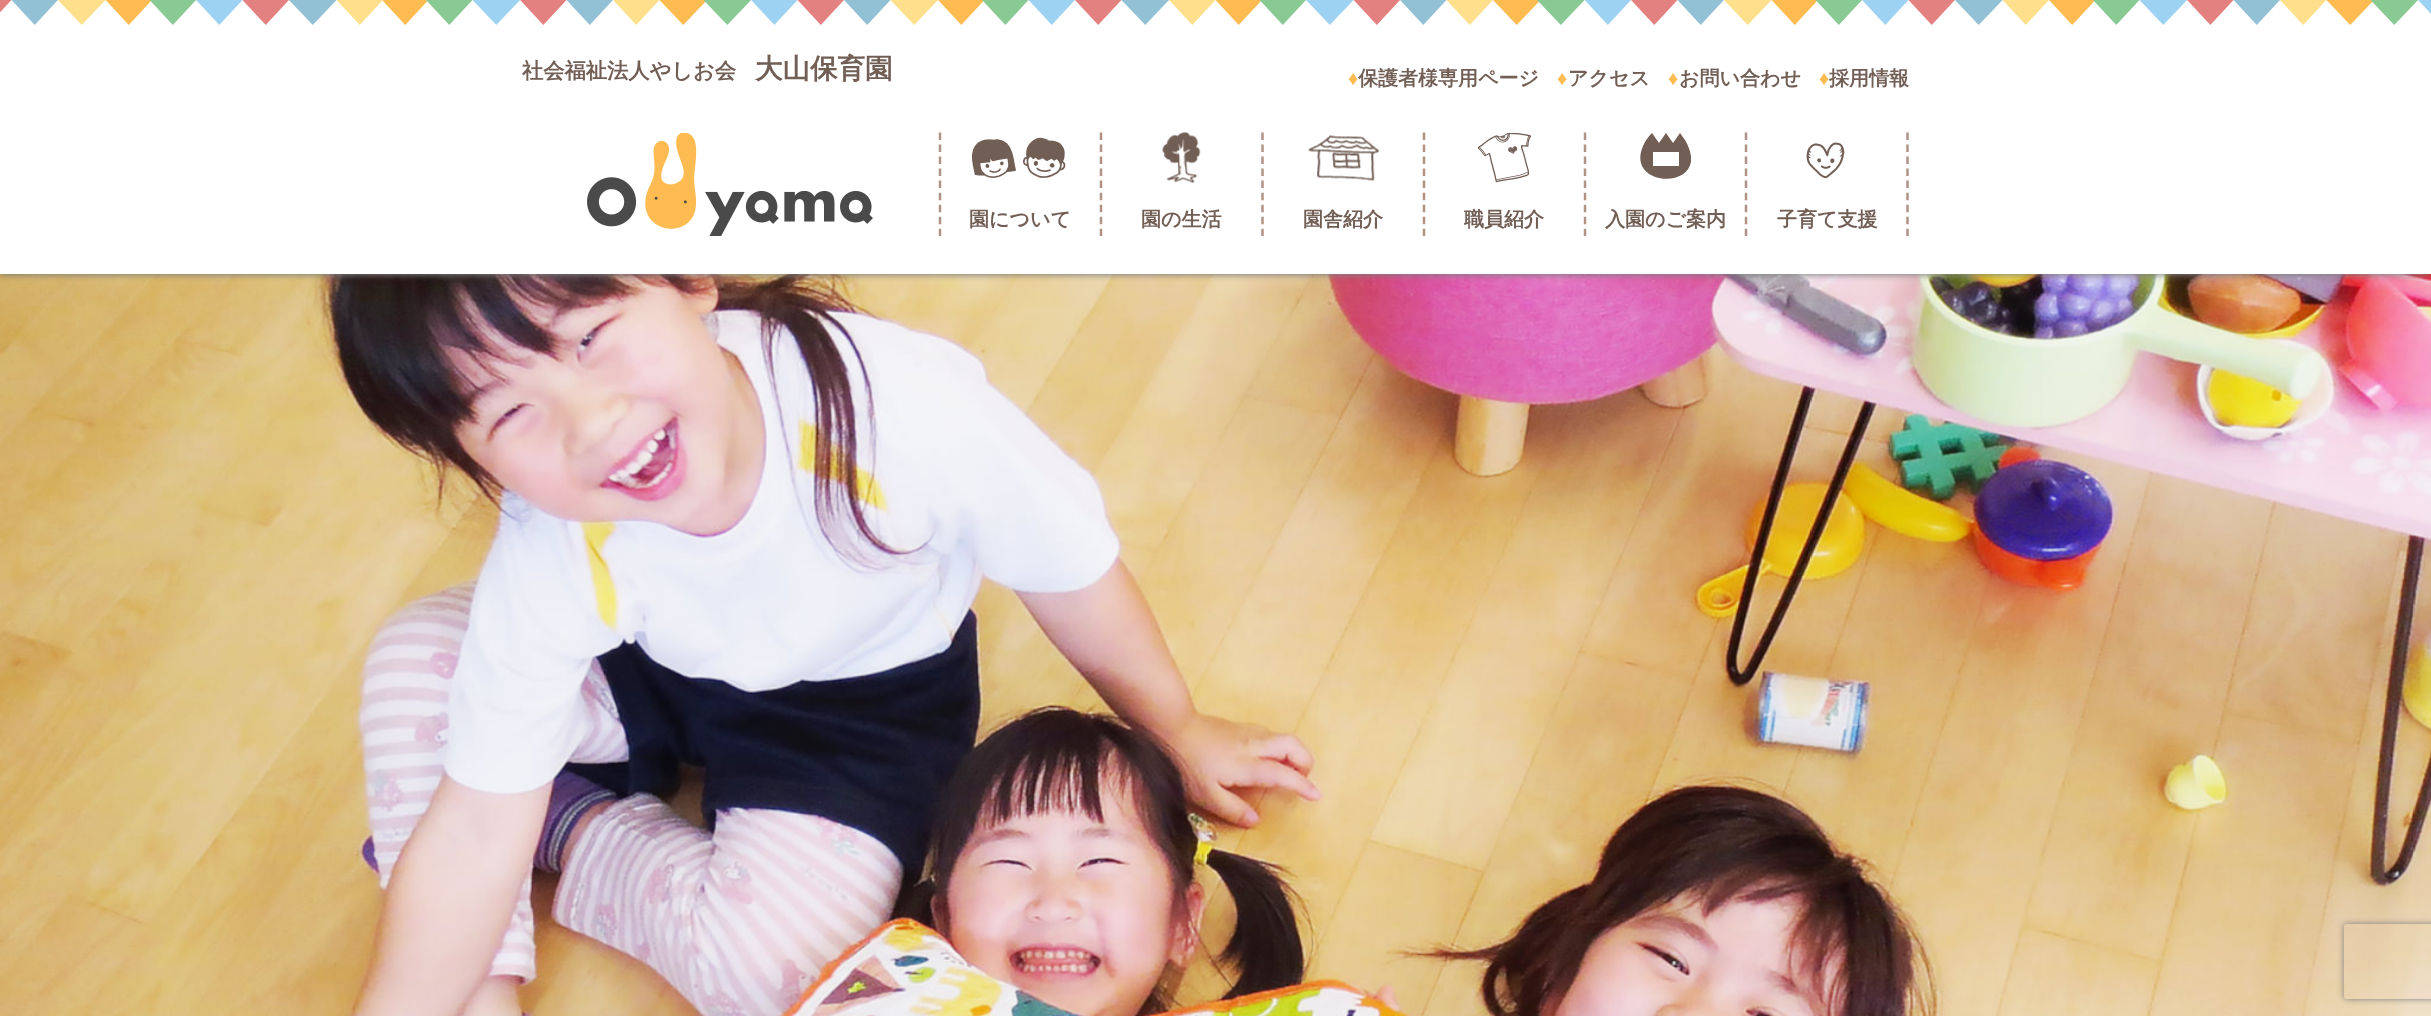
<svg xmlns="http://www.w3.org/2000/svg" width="2431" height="1016">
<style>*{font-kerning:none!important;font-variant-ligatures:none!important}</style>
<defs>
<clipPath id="clip1"><path d="M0 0h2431v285h-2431zm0 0h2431v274h-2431z" clip-rule="evenodd"/></clipPath>
<clipPath id="clip2"><rect x="1640" y="133" width="51" height="46"/></clipPath>
<clipPath id="clip3"><path d="M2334 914h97v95h-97zm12.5 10h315c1.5 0 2.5 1 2.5 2.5v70c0 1.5-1 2.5-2.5 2.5h-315c-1.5 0-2.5-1-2.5-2.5v-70c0-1.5 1-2.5 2.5-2.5z" clip-rule="evenodd"/></clipPath>
</defs>
<rect width="100%" height="100%" fill="#fff"/>
<image x="0" y="274" width="2431" height="742" href="media/8.png"/>
<g clip-path="url(#clip1)">
<rect y="1" width="2431" height="274" fill="#808080" filter="blur(3px)"/>
</g>
<image x="0" y="0" width="2431" height="25" href="media/1.png"/>
<text x="522" y="78" style="font-family:WenQuanYi Zen Hei;font-size:21.25px;font-weight:bold;fill:#715e55">社会福祉法人やしお会</text>
<text x="755" y="78" style="font-family:WenQuanYi Zen Hei;font-size:27.5px;font-weight:bold;fill:#715e55">大山保育園</text>
<text x="1348" y="85" style="font-family:Liberation Sans;font-size:20px;fill:#fdbb51">♦︎</text>
<text x="1358" y="85" style="font-family:WenQuanYi Zen Hei;font-size:20px;font-weight:bold;fill:#715e55">保護者様専用ページ</text>
<text x="1557" y="85" style="font-family:Liberation Sans;font-size:20px;fill:#fdbb51">♦︎</text>
<text x="1568" y="85" style="font-family:WenQuanYi Zen Hei;font-size:20px;font-weight:bold;fill:#715e55">アクセス</text>
<text x="1668" y="85" style="font-family:Liberation Sans;font-size:20px;fill:#fdbb51">♦︎</text>
<text x="1679" y="85" style="font-family:WenQuanYi Zen Hei;font-size:20px;font-weight:bold;fill:#715e55">お問い合わせ</text>
<text x="1819" y="85" style="font-family:Liberation Sans;font-size:20px;fill:#fdbb51">♦︎</text>
<text x="1829" y="85" style="font-family:WenQuanYi Zen Hei;font-size:20px;font-weight:bold;fill:#715e55">採用情報</text>
<image x="587" y="133" width="286" height="103" href="media/2.png"/>
<path d="M940 132.5v103.5" fill="none" stroke="#b19386" stroke-width="2.5" stroke-dasharray="7.5 4.53"/>
<path d="M1101 132.5v103.5" fill="none" stroke="#b19386" stroke-width="2.5" stroke-dasharray="7.5 4.53"/>
<image x="971" y="137" width="95" height="41" href="media/3.png"/>
<text x="969" y="226" style="font-family:WenQuanYi Zen Hei;font-size:20px;font-weight:bold;fill:#715e55">園について</text>
<path d="M1262.5 132.5v103.5" fill="none" stroke="#b19386" stroke-width="2.5" stroke-dasharray="7.5 4.53"/>
<image x="1162" y="132" width="39" height="51" href="media/4.png"/>
<text x="1141" y="226" style="font-family:WenQuanYi Zen Hei;font-size:20px;font-weight:bold;fill:#715e55">園の生活</text>
<path d="M1424 132.5v103.5" fill="none" stroke="#b19386" stroke-width="2.5" stroke-dasharray="7.5 4.53"/>
<image x="1308" y="135" width="72" height="46" href="media/5.png"/>
<text x="1303" y="226" style="font-family:WenQuanYi Zen Hei;font-size:20px;font-weight:bold;fill:#715e55">園舎紹介</text>
<path d="M1585 132.5v103.5" fill="none" stroke="#b19386" stroke-width="2.5" stroke-dasharray="7.5 4.53"/>
<image x="1478" y="133" width="53" height="50" href="media/6.png"/>
<text x="1464" y="226" style="font-family:WenQuanYi Zen Hei;font-size:20px;font-weight:bold;fill:#715e55">職員紹介</text>
<path d="M1746 132.5v103.5" fill="none" stroke="#b19386" stroke-width="2.5" stroke-dasharray="7.5 4.53"/>
<g clip-path="url(#clip2)">
<path d="M1685 140l-5-7l-7 10l-7-10l-7 10l-7-10c-4 4-7 8-9 13c-17 39 52 44 48 10c-1-6-3-11-6-16zm-6 26h-26v-14h26z" fill="#715e55"/>
</g>
<text x="1605" y="226" style="font-family:WenQuanYi Zen Hei;font-size:20px;font-weight:bold;fill:#715e55">入園のご案内</text>
<path d="M1907.5 132.5v103.5" fill="none" stroke="#b19386" stroke-width="2.5" stroke-dasharray="7.5 4.53"/>
<image x="1806" y="142" width="39" height="37" href="media/7.png"/>
<text x="1777" y="226" style="font-family:WenQuanYi Zen Hei;font-size:20px;font-weight:bold;fill:#715e55">子育て支援</text>
<g clip-path="url(#clip3)">
<rect x="2344" y="924" width="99" height="75" rx="2.5" fill="#808080" filter="blur(3px)"/>
</g>
</svg>
